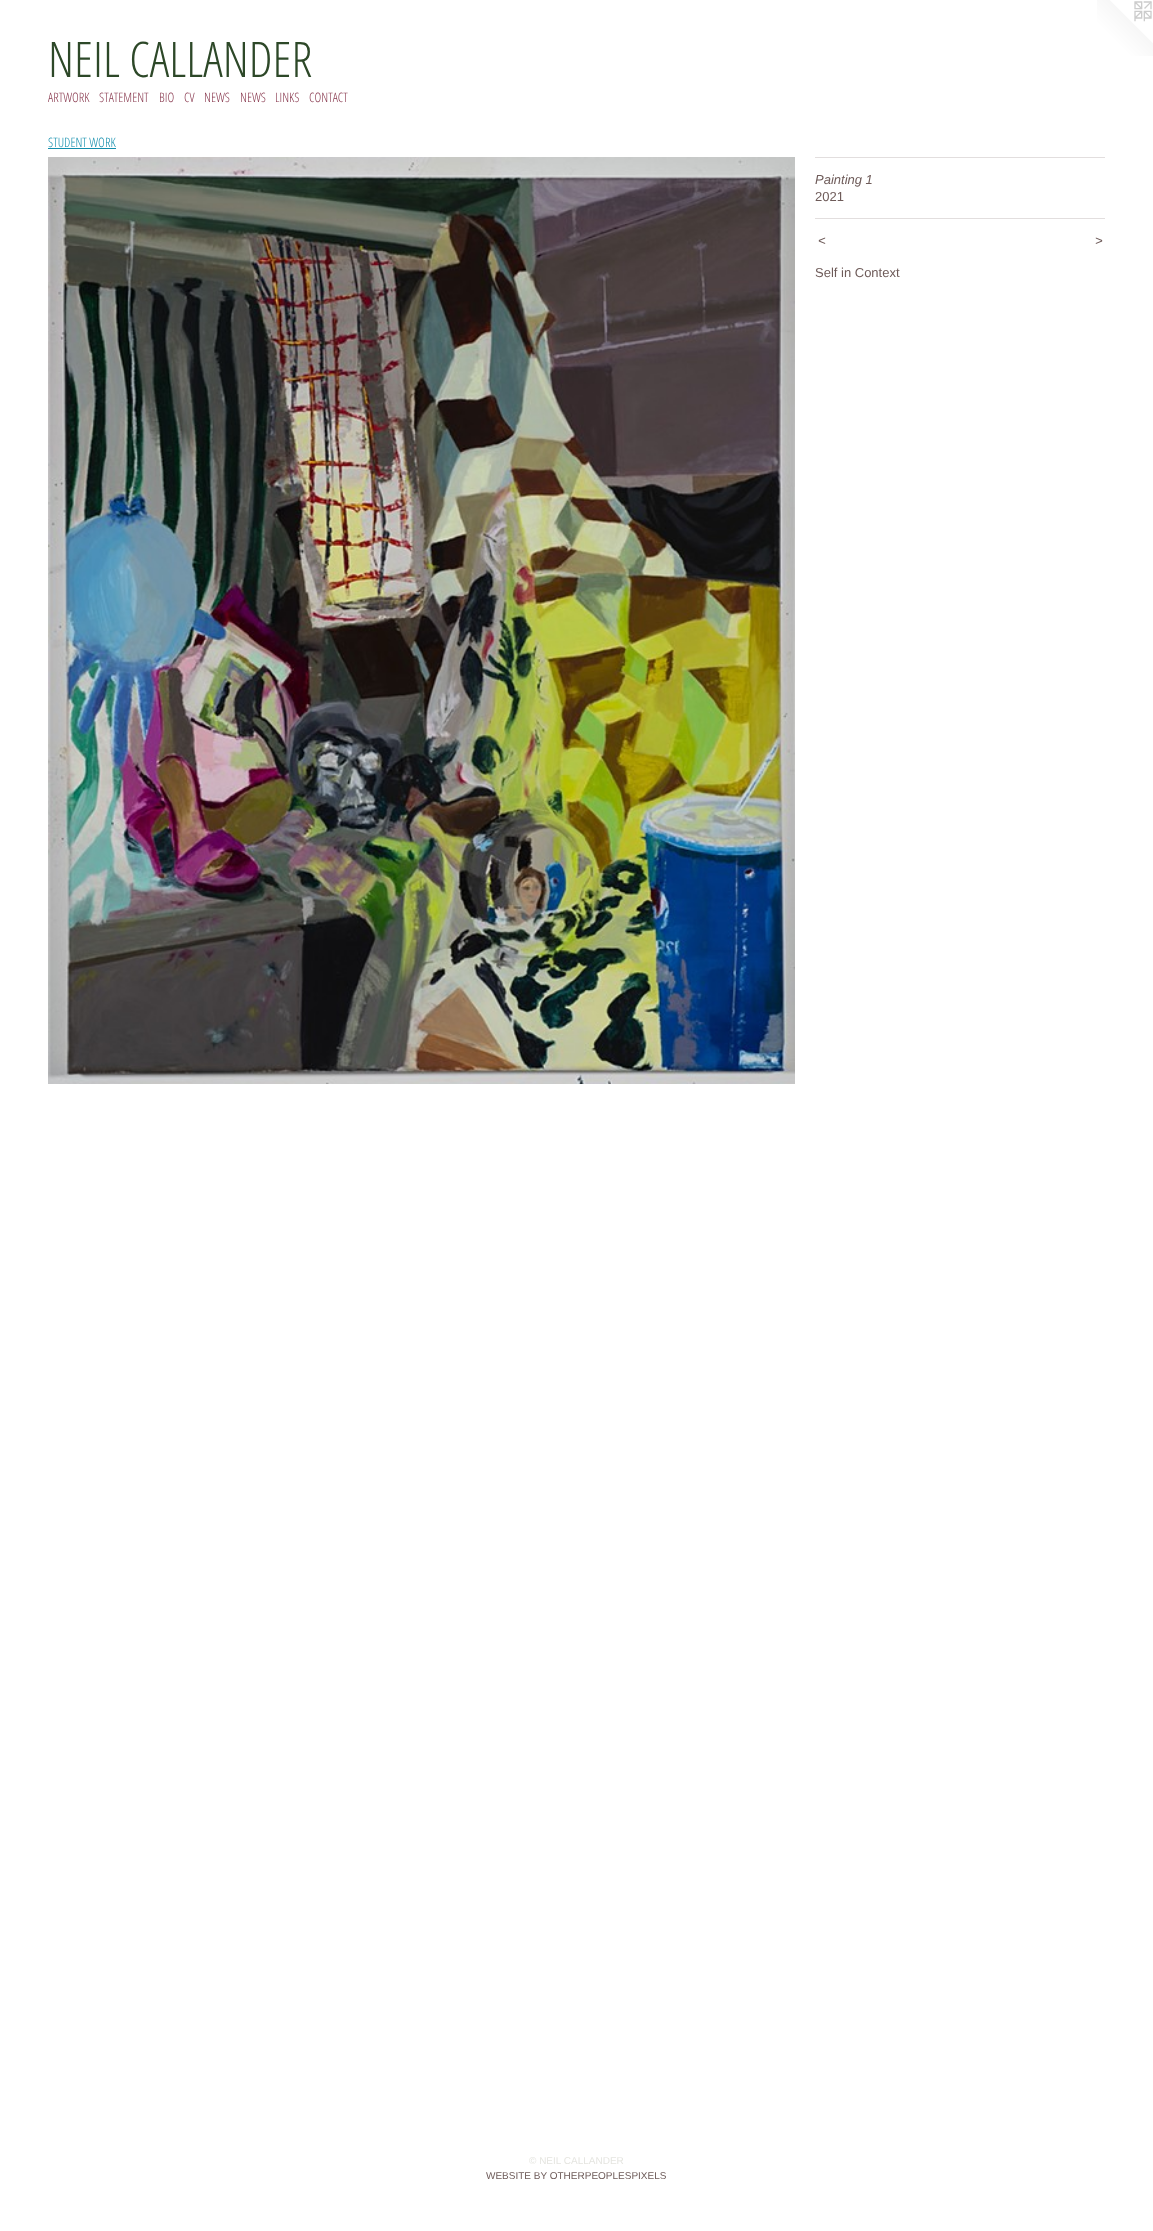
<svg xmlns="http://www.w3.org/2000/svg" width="1153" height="2231">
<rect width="100%" height="100%" fill="#fff"/>
<text x="48" y="77" style="font-family:Open Sans Condensed;font-size:49px;font-weight:300;fill:#2d4828">NEIL CALLANDER</text>
<image x="1097" y="0" width="56" height="56" href="media/1.png"/>
<text x="48" y="102" style="font-family:Open Sans Condensed;font-size:13px;font-weight:300;fill:#87364c">ARTWORK</text>
<text x="99" y="102" style="font-family:Open Sans Condensed;font-size:13px;font-weight:300;fill:#87364c">STATEMENT</text>
<text x="159" y="102" style="font-family:Open Sans Condensed;font-size:13px;font-weight:300;fill:#87364c">BIO</text>
<text x="184" y="102" style="font-family:Open Sans Condensed;font-size:13px;font-weight:300;fill:#87364c">CV</text>
<text x="204" y="102" style="font-family:Open Sans Condensed;font-size:13px;font-weight:300;fill:#87364c">NEWS</text>
<text x="240" y="102" style="font-family:Open Sans Condensed;font-size:13px;font-weight:300;fill:#87364c">NEWS</text>
<text x="275" y="102" style="font-family:Open Sans Condensed;font-size:13px;font-weight:300;fill:#87364c">LINKS</text>
<text x="309" y="102" style="font-family:Open Sans Condensed;font-size:13px;font-weight:300;fill:#87364c">CONTACT</text>
<text x="48" y="147" style="font-family:Open Sans Condensed;font-size:13px;font-weight:300;fill:#118dac">STUDENT WORK</text>
<rect x="48" y="148" width="68" height="1" fill="#118dac"/>
<image x="48" y="157" width="747" height="927" href="media/2.png"/>
<rect x="815" y="157" width="290" height="1" fill="#e2dede"/>
<text x="815" y="184" style="font-family:Liberation Sans;font-size:13px;font-style:italic;fill:#6e5b59">Painting 1</text>
<text x="815" y="201" style="font-family:Liberation Sans;font-size:13px;fill:#6e5b59">2021</text>
<rect x="815" y="218" width="290" height="1" fill="#e2dede"/>
<text x="818" y="245" style="font-family:Liberation Sans;font-size:13px;font-style:italic;letter-spacing:1px;fill:#6e5b59">&lt;</text>
<text x="1095" y="245" style="font-family:Liberation Sans;font-size:13px;font-style:italic;letter-spacing:1px;fill:#6e5b59">&gt;</text>
<text x="815" y="277" style="font-family:Liberation Sans;font-size:13px;fill:#6e5b59">Self in Context</text>
<text x="529" y="2164" style="font-family:Liberation Sans;font-size:10px;fill:#e5e5e0">© NEIL CALLANDER</text>
<text x="486" y="2179" style="font-family:Liberation Sans;font-size:10px;fill:#6e5b59">WEBSITE BY OTHERPEOPLESPIXELS</text>
</svg>
